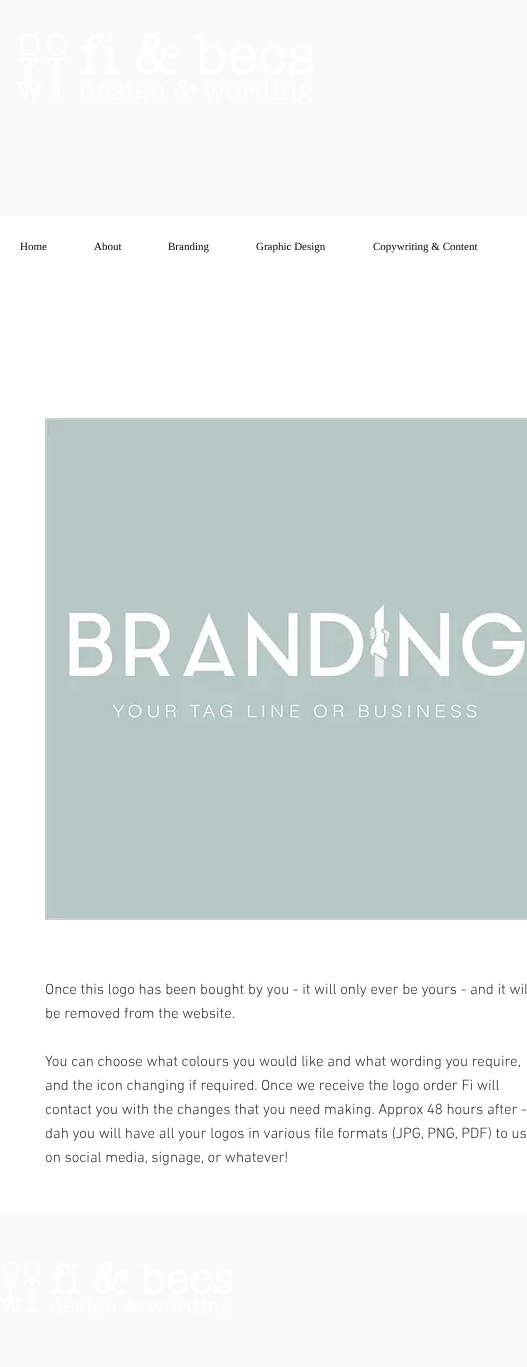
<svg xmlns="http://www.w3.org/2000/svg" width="527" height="1367">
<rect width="100%" height="100%" fill="#fff"/>
<rect width="527" height="216" fill="#fafafa"/>
<image x="15" y="34" width="298" height="69" href="media/1.png"/>
<text x="20" y="250" style="font-family:Liberation Serif;font-size:11px;fill:#000">Home</text>
<text x="94" y="250" style="font-family:Liberation Serif;font-size:11px;fill:#000">About</text>
<text x="168" y="250" style="font-family:Liberation Serif;font-size:11px;fill:#000">Branding</text>
<text x="256" y="250" style="font-family:Liberation Serif;font-size:11px;fill:#000">Graphic Design</text>
<text x="373" y="250" style="font-family:Liberation Serif;font-size:11px;fill:#000">Copywriting &amp; Content</text>
<rect x="45.5" y="418.5" width="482" height="501" fill="none" stroke="#ccc"/>
<image x="46" y="419" width="481" height="500" href="media/2.png"/>
<text x="45" y="994" style="font-family:'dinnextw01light';font-size:15px;font-weight:300;fill:#2f2e2e">Once this logo has been bought by you - it will only ever be yours - and it wil</text>
<text x="45" y="1018" style="font-family:'dinnextw01light';font-size:15px;font-weight:300;fill:#2f2e2e">be removed from the website.</text>
<text x="45" y="1066" style="font-family:'dinnextw01light';font-size:15px;font-weight:300;fill:#2f2e2e">You can choose what colours you would like and what wording you require,</text>
<text x="45" y="1090" style="font-family:'dinnextw01light';font-size:15px;font-weight:300;fill:#2f2e2e">and the icon changing if required. Once we receive the logo order Fi will</text>
<text x="45" y="1114" style="font-family:'dinnextw01light';font-size:15px;font-weight:300;fill:#2f2e2e">contact you with the changes that you need making. Approx 48 hours after -</text>
<text x="45" y="1138" style="font-family:'dinnextw01light';font-size:15px;font-weight:300;fill:#2f2e2e">dah you will have all your logos in various file formats (JPG, PNG, PDF) to us</text>
<text x="45" y="1162" style="font-family:'dinnextw01light';font-size:15px;font-weight:300;fill:#2f2e2e">on social media, signage, or whatever!</text>
<rect y="1215" width="527" height="152" fill="#fafafa"/>
<image x="0" y="1262" width="233" height="54" href="media/3.png"/>
</svg>
